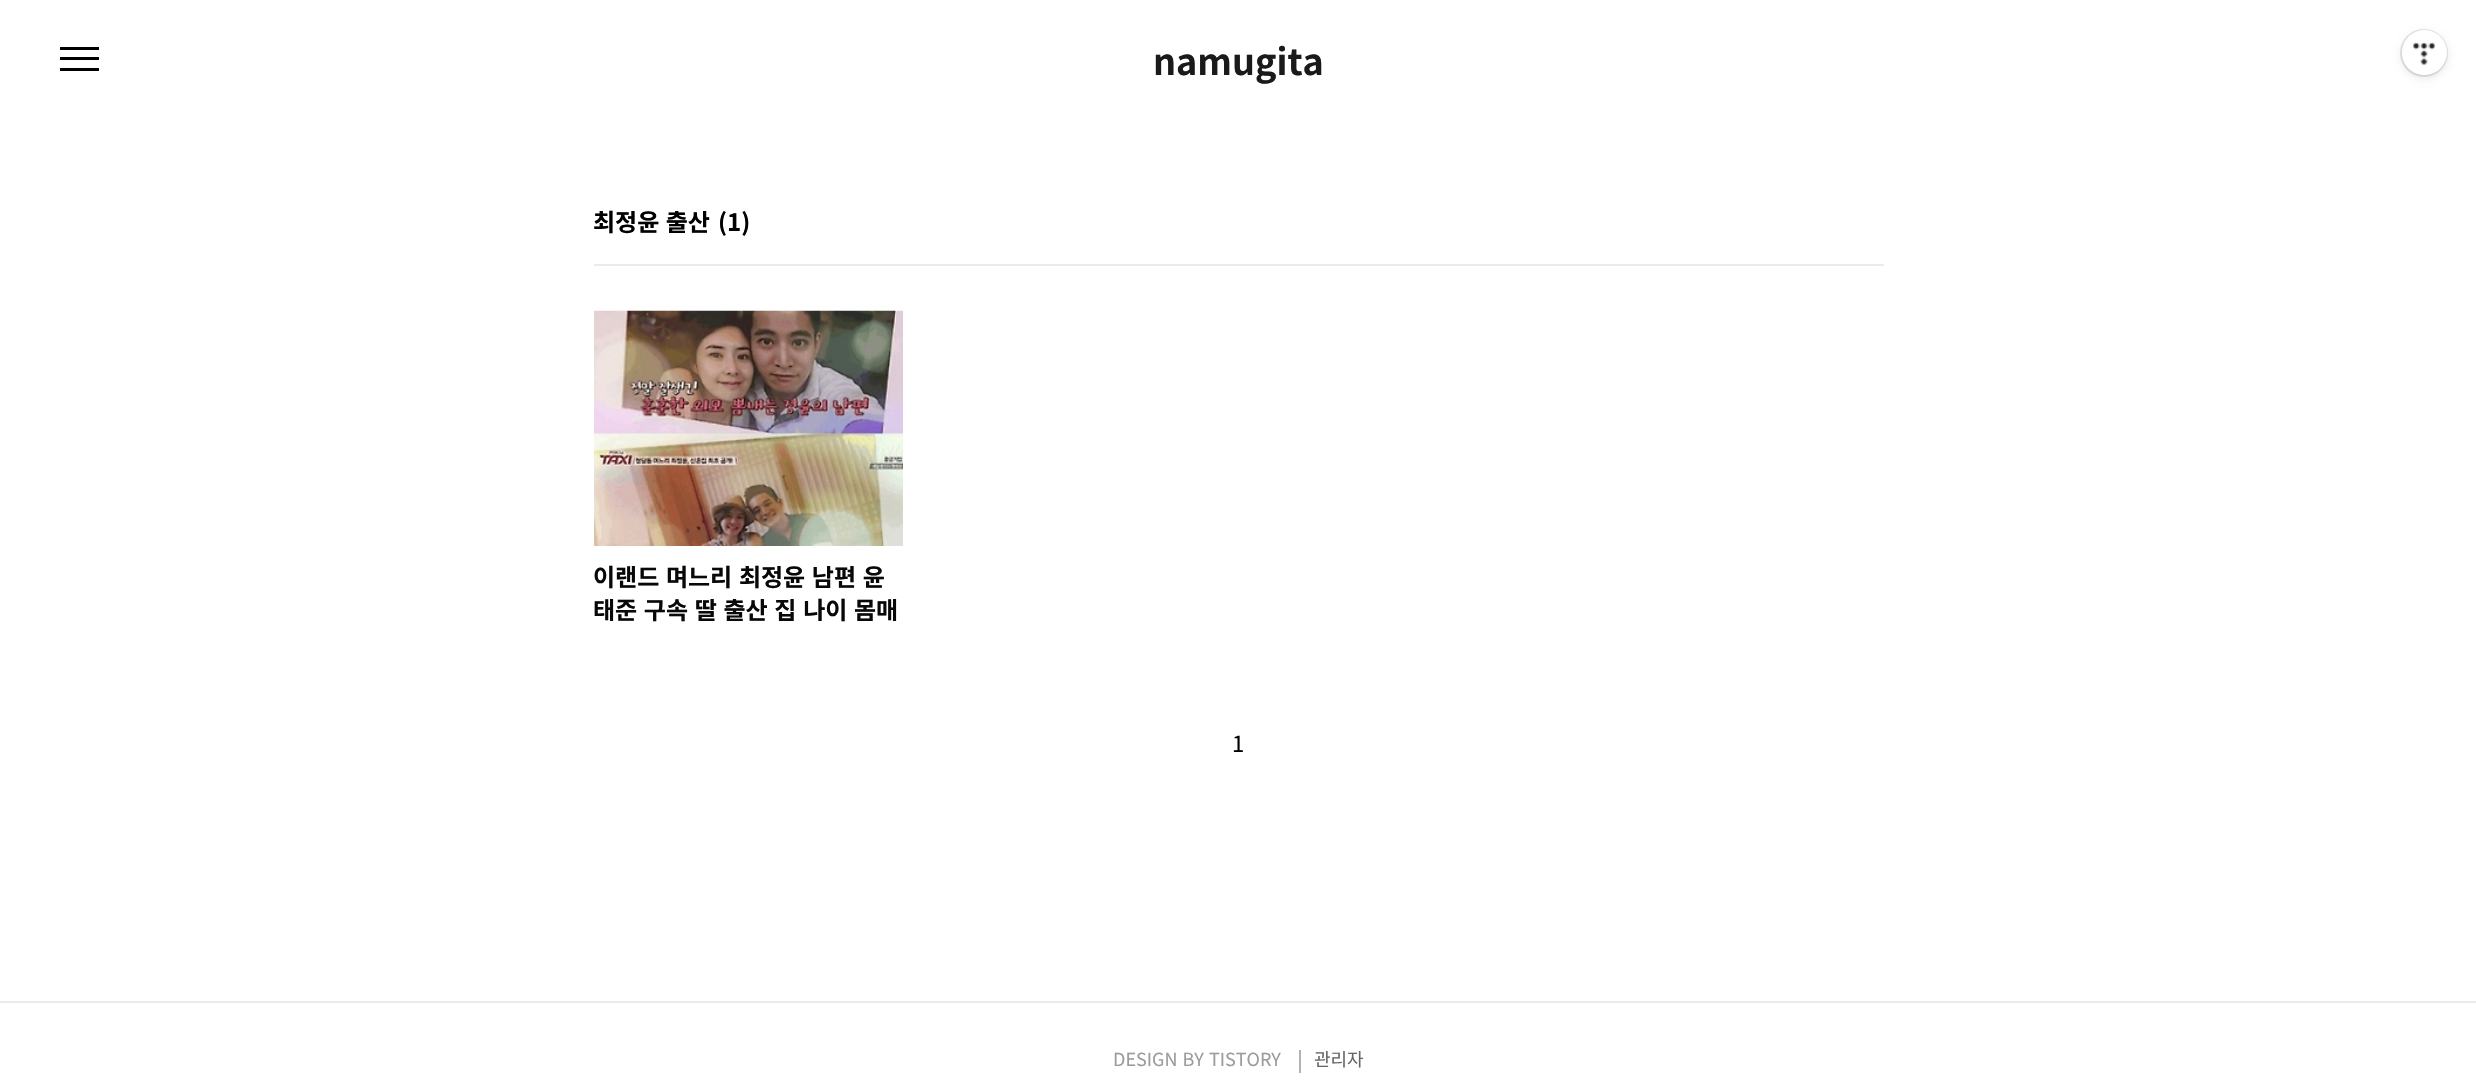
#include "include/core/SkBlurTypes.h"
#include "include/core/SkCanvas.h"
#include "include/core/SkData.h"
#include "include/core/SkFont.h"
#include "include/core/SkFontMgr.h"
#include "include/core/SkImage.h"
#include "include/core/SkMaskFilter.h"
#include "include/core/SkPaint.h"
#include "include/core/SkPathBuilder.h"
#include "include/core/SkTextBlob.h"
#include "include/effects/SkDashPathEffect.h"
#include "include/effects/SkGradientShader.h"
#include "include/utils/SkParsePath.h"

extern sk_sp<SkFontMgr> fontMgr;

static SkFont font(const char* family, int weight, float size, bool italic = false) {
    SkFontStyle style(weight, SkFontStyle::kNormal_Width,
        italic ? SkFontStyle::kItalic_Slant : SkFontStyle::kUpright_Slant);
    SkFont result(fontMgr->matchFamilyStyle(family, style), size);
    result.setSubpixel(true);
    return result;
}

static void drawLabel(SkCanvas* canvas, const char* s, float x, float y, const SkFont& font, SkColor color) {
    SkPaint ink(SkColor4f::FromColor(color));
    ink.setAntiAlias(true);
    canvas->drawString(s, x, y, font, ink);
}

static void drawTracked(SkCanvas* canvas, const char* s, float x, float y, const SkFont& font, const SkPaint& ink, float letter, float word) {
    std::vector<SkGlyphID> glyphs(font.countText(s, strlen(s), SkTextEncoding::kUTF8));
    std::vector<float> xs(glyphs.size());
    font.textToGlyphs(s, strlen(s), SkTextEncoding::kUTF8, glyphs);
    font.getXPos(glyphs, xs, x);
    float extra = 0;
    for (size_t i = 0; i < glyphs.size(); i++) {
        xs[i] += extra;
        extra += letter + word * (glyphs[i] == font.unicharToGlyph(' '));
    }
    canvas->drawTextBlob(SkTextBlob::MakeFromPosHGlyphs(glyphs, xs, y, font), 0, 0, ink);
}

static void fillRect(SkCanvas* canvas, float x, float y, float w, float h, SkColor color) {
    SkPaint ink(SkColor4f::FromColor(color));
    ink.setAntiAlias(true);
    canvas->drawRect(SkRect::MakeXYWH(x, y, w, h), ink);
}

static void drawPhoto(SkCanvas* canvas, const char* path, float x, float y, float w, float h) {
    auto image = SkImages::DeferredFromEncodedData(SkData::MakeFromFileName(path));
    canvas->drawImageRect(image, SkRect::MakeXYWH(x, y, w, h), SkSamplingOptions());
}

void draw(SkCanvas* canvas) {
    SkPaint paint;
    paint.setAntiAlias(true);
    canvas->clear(0xFFFFFFFF);
    fillRect(canvas, 60, 47, 39, 3, 0xFF000000);
    fillRect(canvas, 60, 57, 39, 3, 0xFF000000);
    fillRect(canvas, 60, 68, 39, 3, 0xFF000000);
    SkFont font1 = font("Noto Sans KR", 700, 36);
    drawLabel(canvas, "namugita", 1153, 75, font1, 0xFF1A1A1A);
    fillRect(canvas, 594, 264, 1290, 2, 0xFFEBEBEB);
    SkFont font2 = font("Noto Sans KR", 700, 24);
    paint.setColor(0xFF000000);
    drawTracked(canvas, "최정윤 출산", 593, 231, font2, paint, 0, 1);
    drawLabel(canvas, "(1)", 718, 231, font2, 0xFF000000);
    drawPhoto(canvas, "assets/img1.png", 594, 310, 309, 236);
    paint.setColor(0xFF080808);
    drawTracked(canvas, "이랜드 며느리 최정윤 남편 윤", 593, 586, font2, paint, 0, 1.25f);
    drawTracked(canvas, "태준 구속 딸 출산 집 나이 몸매", 593, 619, font2, paint, 0, 1.25f);
    SkFont font3 = font("Noto Sans KR", 400, 22);
    drawLabel(canvas, "1", 1232, 752, font3, 0xFF000000);
    fillRect(canvas, 0, 1001, 2476, 2, 0xFFEBEBEB);
    SkFont font4 = font("Noto Sans KR", 400, 18);
    paint.setColor(0xFF9B9B9B);
    drawTracked(canvas, "DESIGN BY", 1113, 1066, font4, paint, 0, 1);
    drawLabel(canvas, "TISTORY", 1209, 1066, font4, 0xFF9B9B9B);
    fillRect(canvas, 1299, 1050, 2, 23, 0xFFB2B2B2);
    drawLabel(canvas, "관리자", 1314, 1066, font4, 0xFF666666);
    paint.setColor(0x1A000000);
    paint.setMaskFilter(SkMaskFilter::MakeBlur(kNormal_SkBlurStyle, 4));
    canvas->drawRoundRect(SkRect::MakeXYWH(2402, 33, 45, 45), 22.5f, 22.5f, paint);
    paint.setMaskFilter(nullptr);
    paint.setStroke(true);
    paint.setStrokeWidth(2);
    canvas->drawCircle(2424, 53, 23, paint);
    paint.setStroke(false);
    paint.setColor(0xFFFFFFFF);
    canvas->drawCircle(2424.5f, 52.5f, 22.5f, paint);
    drawPhoto(canvas, "assets/img2.png", 2413, 42, 22, 23);
}
